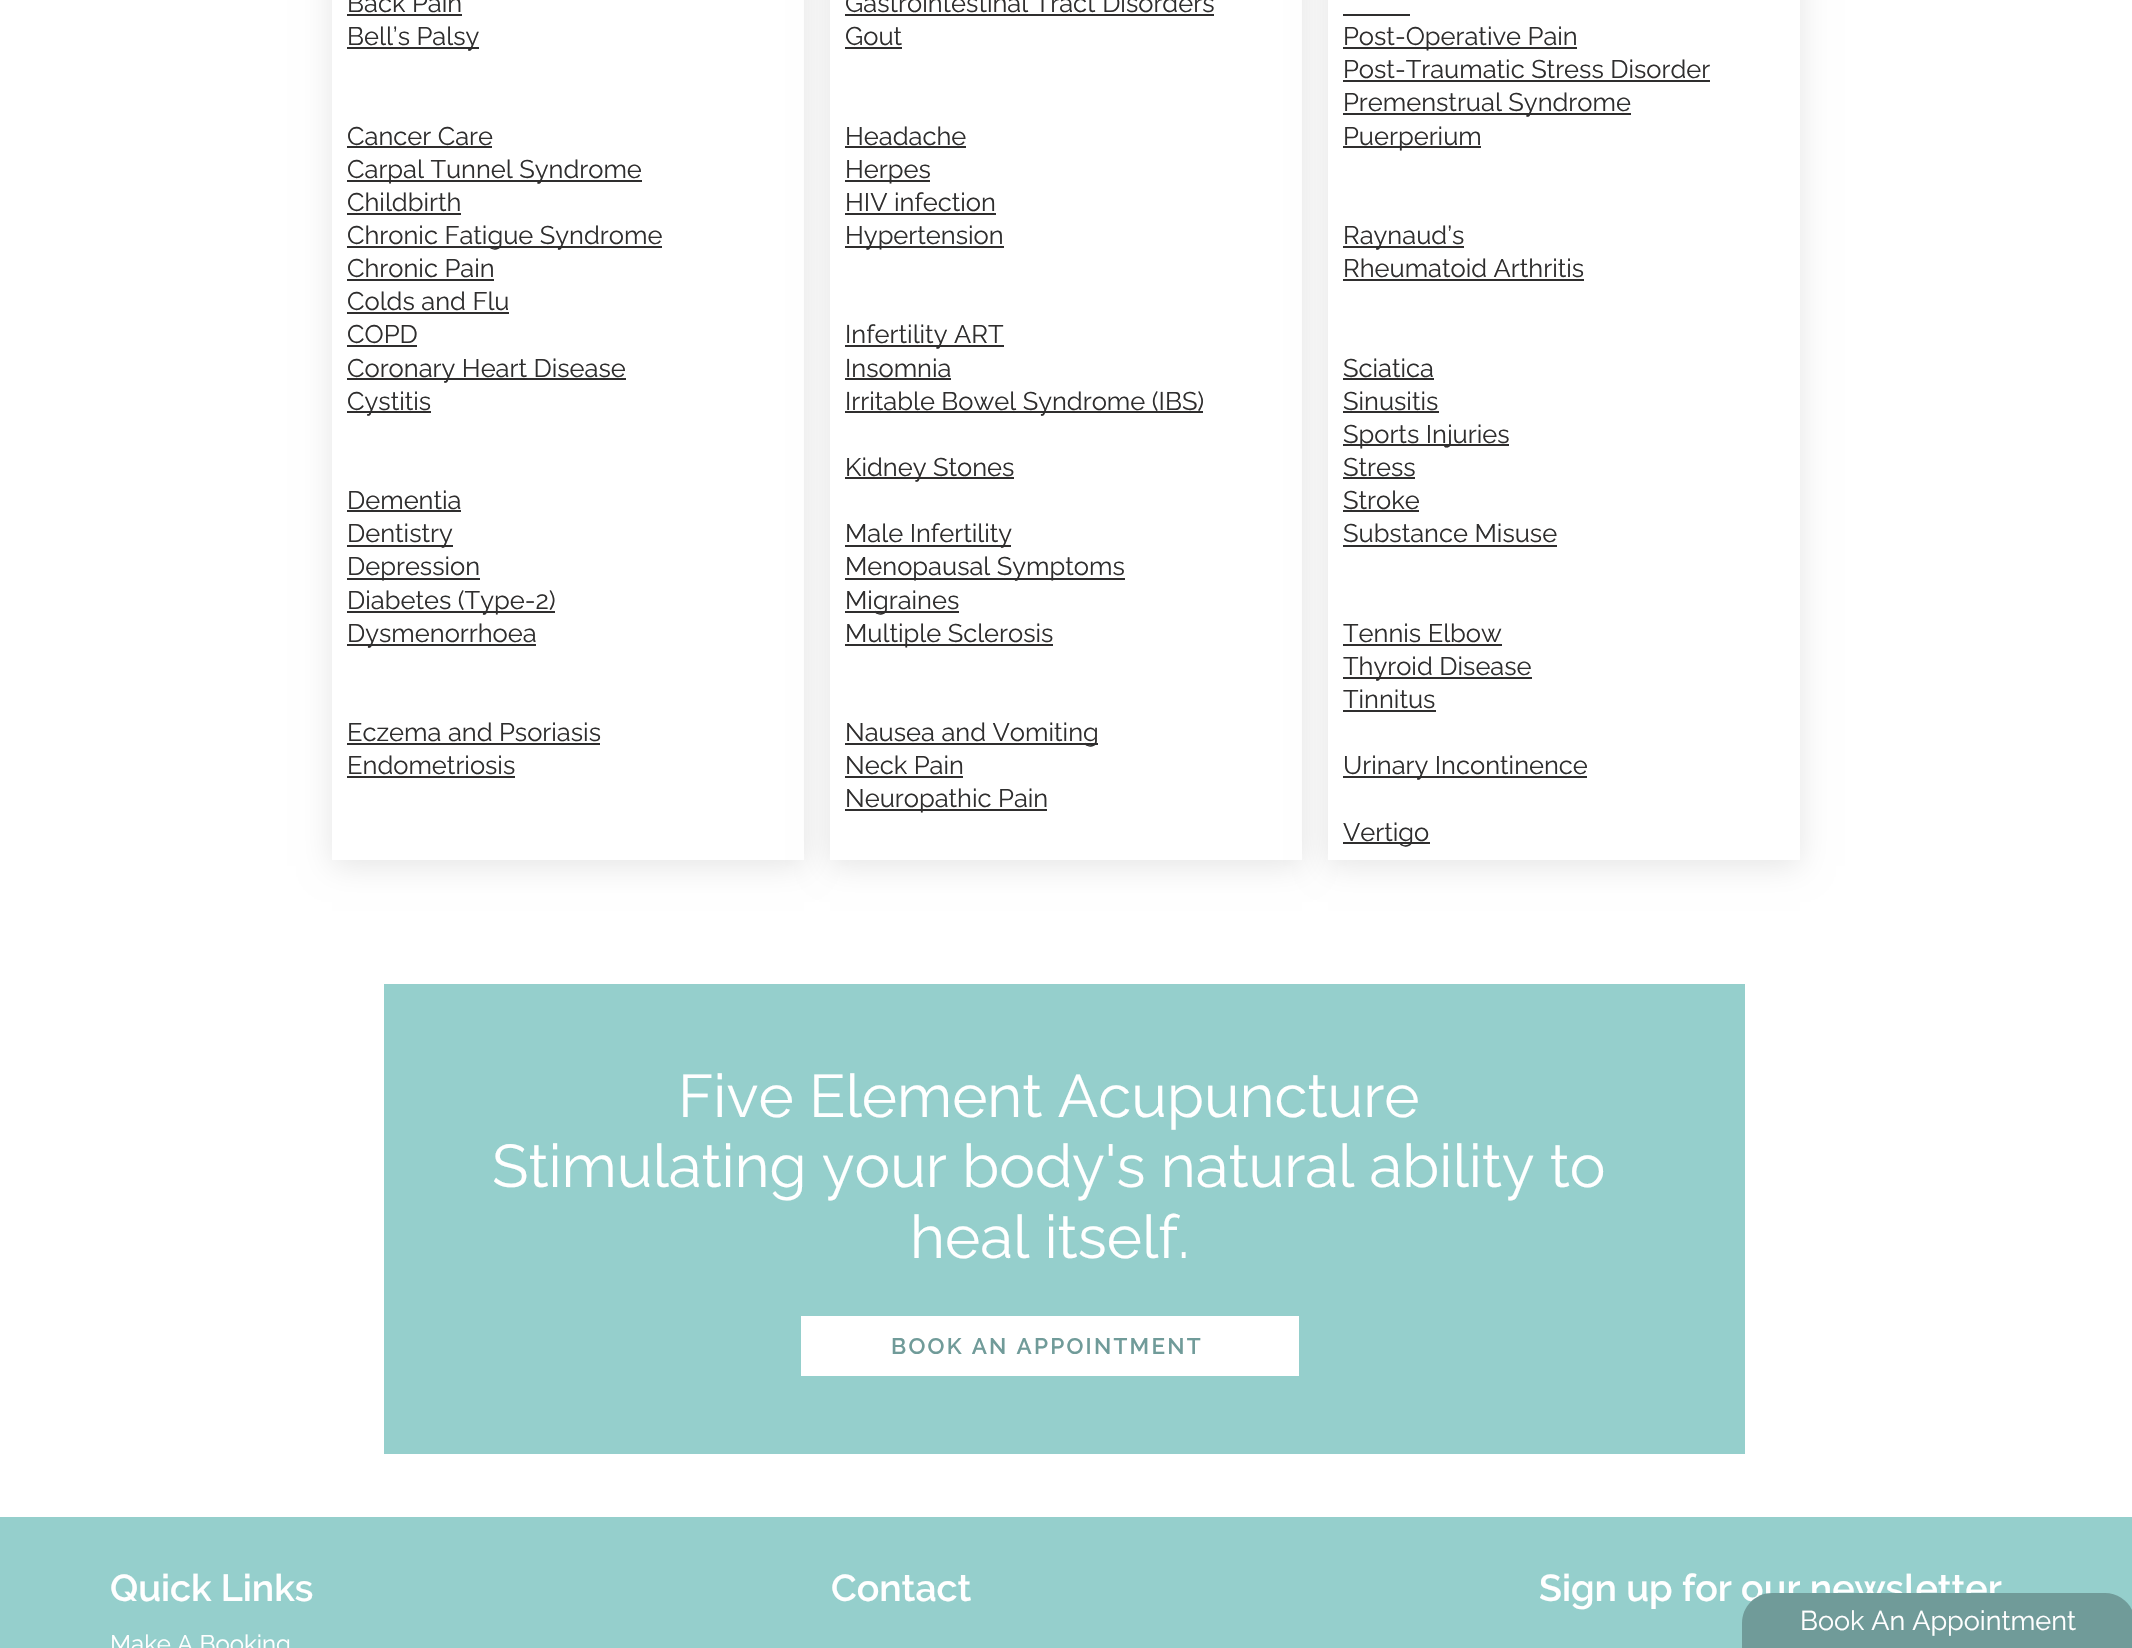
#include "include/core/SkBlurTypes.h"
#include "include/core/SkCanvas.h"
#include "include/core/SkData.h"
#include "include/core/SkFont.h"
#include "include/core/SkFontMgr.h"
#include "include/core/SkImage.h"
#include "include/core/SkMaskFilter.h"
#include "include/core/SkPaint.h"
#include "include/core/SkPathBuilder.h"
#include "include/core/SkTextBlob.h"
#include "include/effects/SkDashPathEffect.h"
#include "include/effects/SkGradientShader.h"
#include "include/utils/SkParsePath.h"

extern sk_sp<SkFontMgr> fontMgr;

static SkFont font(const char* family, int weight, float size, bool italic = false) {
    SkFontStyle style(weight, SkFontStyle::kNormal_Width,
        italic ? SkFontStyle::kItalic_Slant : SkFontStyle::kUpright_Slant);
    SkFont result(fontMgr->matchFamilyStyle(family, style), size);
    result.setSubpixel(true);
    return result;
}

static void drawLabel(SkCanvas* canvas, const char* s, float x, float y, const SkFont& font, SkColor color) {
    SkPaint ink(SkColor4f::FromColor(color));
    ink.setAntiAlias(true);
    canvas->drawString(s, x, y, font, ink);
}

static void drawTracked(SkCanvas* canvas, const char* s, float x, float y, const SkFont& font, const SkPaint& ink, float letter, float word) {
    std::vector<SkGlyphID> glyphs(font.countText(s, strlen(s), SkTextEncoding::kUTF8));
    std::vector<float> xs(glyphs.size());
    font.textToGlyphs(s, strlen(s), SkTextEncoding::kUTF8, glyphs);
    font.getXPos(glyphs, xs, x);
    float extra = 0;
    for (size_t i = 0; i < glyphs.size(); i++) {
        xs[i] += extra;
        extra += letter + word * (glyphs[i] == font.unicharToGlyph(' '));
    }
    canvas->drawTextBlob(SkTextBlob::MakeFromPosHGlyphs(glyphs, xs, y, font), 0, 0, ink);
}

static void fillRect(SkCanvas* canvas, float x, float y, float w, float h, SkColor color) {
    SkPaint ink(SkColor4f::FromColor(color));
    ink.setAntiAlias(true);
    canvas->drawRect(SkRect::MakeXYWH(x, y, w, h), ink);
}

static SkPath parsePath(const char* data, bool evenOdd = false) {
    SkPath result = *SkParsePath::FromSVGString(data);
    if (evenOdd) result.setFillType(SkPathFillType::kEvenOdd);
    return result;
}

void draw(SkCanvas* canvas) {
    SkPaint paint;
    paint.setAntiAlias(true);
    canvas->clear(0xFFFFFFFF);
    paint.setColor(0x1A000000);
    paint.setMaskFilter(SkMaskFilter::MakeBlur(kNormal_SkBlurStyle, 15));
    canvas->drawRect(SkRect::MakeXYWH(332, -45, 472, 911), paint);
    paint.setMaskFilter(nullptr);
    fillRect(canvas, 332, 0, 472, 860, 0xFFFFFFFF);
    SkFont font1 = font("Raleway", 400, 25.5f);
    drawLabel(canvas, "Back Pain", 347, 12, font1, 0xFF2F2E2E);
    fillRect(canvas, 347, 14, 115, 2, 0xFF2F2E2E);
    fillRect(canvas, 347, 47, 132, 2, 0xFF2F2E2E);
    drawLabel(canvas, "Bell’s Palsy", 347, 45, font1, 0xFF2F2E2E);
    drawLabel(canvas, "Cancer Care", 347, 145, font1, 0xFF2F2E2E);
    fillRect(canvas, 347, 146, 145, 2, 0xFF2F2E2E);
    fillRect(canvas, 347, 180, 295, 2, 0xFF2F2E2E);
    drawLabel(canvas, "Carpal Tunnel Syndrome", 347, 178, font1, 0xFF2F2E2E);
    drawLabel(canvas, "Childbirth", 347, 211, font1, 0xFF2F2E2E);
    fillRect(canvas, 347, 213, 114, 2, 0xFF2F2E2E);
    fillRect(canvas, 347, 246, 315, 2, 0xFF2F2E2E);
    drawLabel(canvas, "Chronic Fatigue Syndrome", 347, 244, font1, 0xFF2F2E2E);
    drawLabel(canvas, "Chronic Pain", 347, 277, font1, 0xFF2F2E2E);
    fillRect(canvas, 347, 279, 147, 2, 0xFF2F2E2E);
    drawLabel(canvas, "Colds and Flu", 347, 310, font1, 0xFF2F2E2E);
    fillRect(canvas, 347, 312, 162, 2, 0xFF2F2E2E);
    drawLabel(canvas, "COPD", 347, 343, font1, 0xFF2F2E2E);
    fillRect(canvas, 347, 345, 70, 2, 0xFF2F2E2E);
    fillRect(canvas, 347, 378, 279, 2, 0xFF2F2E2E);
    drawLabel(canvas, "Coronary Heart Disease", 347, 377, font1, 0xFF2F2E2E);
    fillRect(canvas, 347, 411, 84, 2, 0xFF2F2E2E);
    drawLabel(canvas, "Cystitis", 347, 410, font1, 0xFF2F2E2E);
    drawLabel(canvas, "Dementia", 347, 509, font1, 0xFF2F2E2E);
    fillRect(canvas, 347, 510, 114, 2, 0xFF2F2E2E);
    fillRect(canvas, 347, 545, 106, 2, 0xFF2F2E2E);
    drawLabel(canvas, "Dentistry", 347, 542, font1, 0xFF2F2E2E);
    fillRect(canvas, 347, 578, 133, 2, 0xFF2F2E2E);
    drawLabel(canvas, "Depression", 347, 575, font1, 0xFF2F2E2E);
    fillRect(canvas, 347, 611, 208, 2, 0xFF2F2E2E);
    drawLabel(canvas, "Diabetes (Type-2)", 347, 609, font1, 0xFF2F2E2E);
    fillRect(canvas, 347, 644, 189, 2, 0xFF2F2E2E);
    drawLabel(canvas, "Dysmenorrhoea", 347, 642, font1, 0xFF2F2E2E);
    drawLabel(canvas, "Eczema and Psoriasis", 347, 741, font1, 0xFF2F2E2E);
    fillRect(canvas, 347, 743, 253, 2, 0xFF2F2E2E);
    drawLabel(canvas, "Endometriosis", 347, 774, font1, 0xFF2F2E2E);
    fillRect(canvas, 347, 776, 168, 2, 0xFF2F2E2E);
    paint.setMaskFilter(SkMaskFilter::MakeBlur(kNormal_SkBlurStyle, 15));
    canvas->drawRect(SkRect::MakeXYWH(830, -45, 472, 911), paint);
    paint.setMaskFilter(nullptr);
    fillRect(canvas, 830, 0, 472, 860, 0xFFFFFFFF);
    drawLabel(canvas, "Gastrointestinal Tract Disorders", 845, 12, font1, 0xFF2F2E2E);
    fillRect(canvas, 845, 14, 369, 2, 0xFF2F2E2E);
    drawLabel(canvas, "Gout", 845, 45, font1, 0xFF2F2E2E);
    fillRect(canvas, 845, 47, 57, 2, 0xFF2F2E2E);
    drawLabel(canvas, "Headache", 845, 145, font1, 0xFF2F2E2E);
    fillRect(canvas, 845, 146, 121, 2, 0xFF2F2E2E);
    fillRect(canvas, 845, 180, 85, 2, 0xFF2F2E2E);
    drawLabel(canvas, "Herpes", 845, 178, font1, 0xFF2F2E2E);
    drawLabel(canvas, "HIV infection", 845, 211, font1, 0xFF2F2E2E);
    fillRect(canvas, 845, 213, 151, 2, 0xFF2F2E2E);
    fillRect(canvas, 845, 246, 159, 2, 0xFF2F2E2E);
    drawLabel(canvas, "Hypertension", 845, 244, font1, 0xFF2F2E2E);
    fillRect(canvas, 845, 345, 159, 2, 0xFF2F2E2E);
    drawLabel(canvas, "Infertility ART", 845, 343, font1, 0xFF2F2E2E);
    drawLabel(canvas, "Insomnia", 845, 377, font1, 0xFF2F2E2E);
    fillRect(canvas, 845, 378, 106, 2, 0xFF2F2E2E);
    fillRect(canvas, 845, 411, 358, 2, 0xFF2F2E2E);
    drawLabel(canvas, "Irritable Bowel Syndrome (IBS)", 845, 410, font1, 0xFF2F2E2E);
    fillRect(canvas, 845, 477, 169, 2, 0xFF2F2E2E);
    drawLabel(canvas, "Kidney Stones", 845, 476, font1, 0xFF2F2E2E);
    fillRect(canvas, 845, 545, 166, 2, 0xFF2F2E2E);
    drawLabel(canvas, "Male Infertility", 845, 542, font1, 0xFF2F2E2E);
    fillRect(canvas, 845, 578, 280, 2, 0xFF2F2E2E);
    drawLabel(canvas, "Menopausal Symptoms", 845, 575, font1, 0xFF2F2E2E);
    fillRect(canvas, 845, 611, 114, 2, 0xFF2F2E2E);
    drawLabel(canvas, "Migraines", 845, 609, font1, 0xFF2F2E2E);
    fillRect(canvas, 845, 644, 208, 2, 0xFF2F2E2E);
    drawLabel(canvas, "Multiple Sclerosis", 845, 642, font1, 0xFF2F2E2E);
    fillRect(canvas, 845, 743, 253, 2, 0xFF2F2E2E);
    drawLabel(canvas, "Nausea and Vomiting", 845, 741, font1, 0xFF2F2E2E);
    drawLabel(canvas, "Neck Pain", 845, 774, font1, 0xFF2F2E2E);
    fillRect(canvas, 845, 776, 118, 2, 0xFF2F2E2E);
    fillRect(canvas, 845, 809, 202, 2, 0xFF2F2E2E);
    drawLabel(canvas, "Neuropathic Pain", 845, 807, font1, 0xFF2F2E2E);
    paint.setMaskFilter(SkMaskFilter::MakeBlur(kNormal_SkBlurStyle, 15));
    canvas->drawRect(SkRect::MakeXYWH(1328, -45, 472, 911), paint);
    paint.setMaskFilter(nullptr);
    fillRect(canvas, 1328, 0, 472, 860, 0xFFFFFFFF);
    fillRect(canvas, 1343, 14, 67, 2, 0xFF2F2E2E);
    fillRect(canvas, 1343, 47, 234, 2, 0xFF2F2E2E);
    drawLabel(canvas, "Post-Operative Pain", 1343, 45, font1, 0xFF2F2E2E);
    drawLabel(canvas, "Post-Traumatic Stress Disorder", 1343, 78, font1, 0xFF2F2E2E);
    fillRect(canvas, 1343, 80, 367, 2, 0xFF2F2E2E);
    fillRect(canvas, 1343, 113, 288, 2, 0xFF2F2E2E);
    drawLabel(canvas, "Premenstrual Syndrome", 1343, 111, font1, 0xFF2F2E2E);
    fillRect(canvas, 1343, 146, 138, 2, 0xFF2F2E2E);
    drawLabel(canvas, "Puerperium", 1343, 145, font1, 0xFF2F2E2E);
    fillRect(canvas, 1343, 246, 121, 2, 0xFF2F2E2E);
    drawLabel(canvas, "Raynaud’s", 1343, 244, font1, 0xFF2F2E2E);
    drawLabel(canvas, "Rheumatoid Arthritis", 1343, 277, font1, 0xFF2F2E2E);
    fillRect(canvas, 1343, 279, 241, 2, 0xFF2F2E2E);
    drawLabel(canvas, "Sciatica", 1343, 377, font1, 0xFF2F2E2E);
    fillRect(canvas, 1343, 378, 91, 2, 0xFF2F2E2E);
    drawLabel(canvas, "Sinusitis", 1343, 410, font1, 0xFF2F2E2E);
    fillRect(canvas, 1343, 411, 96, 2, 0xFF2F2E2E);
    fillRect(canvas, 1343, 444, 166, 2, 0xFF2F2E2E);
    drawLabel(canvas, "Sports Injuries", 1343, 443, font1, 0xFF2F2E2E);
    drawLabel(canvas, "Stress", 1343, 476, font1, 0xFF2F2E2E);
    fillRect(canvas, 1343, 477, 72, 2, 0xFF2F2E2E);
    drawLabel(canvas, "Stroke", 1343, 509, font1, 0xFF2F2E2E);
    fillRect(canvas, 1343, 510, 76, 2, 0xFF2F2E2E);
    drawLabel(canvas, "Substance Misuse", 1343, 542, font1, 0xFF2F2E2E);
    fillRect(canvas, 1343, 545, 214, 2, 0xFF2F2E2E);
    drawLabel(canvas, "Tennis Elbow", 1343, 642, font1, 0xFF2F2E2E);
    fillRect(canvas, 1343, 644, 159, 2, 0xFF2F2E2E);
    fillRect(canvas, 1343, 677, 189, 2, 0xFF2F2E2E);
    drawLabel(canvas, "Thyroid Disease", 1343, 675, font1, 0xFF2F2E2E);
    drawLabel(canvas, "Tinnitus", 1343, 708, font1, 0xFF2F2E2E);
    fillRect(canvas, 1343, 710, 93, 2, 0xFF2F2E2E);
    fillRect(canvas, 1343, 776, 244, 2, 0xFF2F2E2E);
    drawLabel(canvas, "Urinary Incontinence", 1343, 774, font1, 0xFF2F2E2E);
    fillRect(canvas, 1343, 842, 87, 2, 0xFF2F2E2E);
    drawLabel(canvas, "Vertigo", 1343, 841, font1, 0xFF2F2E2E);
    fillRect(canvas, 384, 984, 1361, 470, 0xFF95CFCC);
    SkFont font2 = font("Raleway", 400, 60);
    drawLabel(canvas, "Five Element Acupuncture", 678, 1117, font2, 0xFFFFFFFF);
    drawLabel(canvas, "Stimulating your body's natural ability to", 492, 1187, font2, 0xFFFFFFFF);
    drawLabel(canvas, "heal itself.", 910, 1258, font2, 0xFFFFFFFF);
    fillRect(canvas, 801, 1316, 498, 60, 0xFFFFFFFF);
    SkFont font3 = font("Raleway", 600, 22.5f);
    paint.setColor(0xFF709B99);
    drawTracked(canvas, "BOOK AN APPOINTMENT", 891, 1354, font3, paint, 2.25f, 0);
    fillRect(canvas, 0, 1517, 2132, 131, 0xFF95CFCC);
    SkFont font4 = font("Raleway", 600, 37.5f);
    drawLabel(canvas, "Quick Links", 110, 1601, font4, 0xFFFFFFFF);
    SkFont font5 = font("Raleway", 400, 24);
    drawLabel(canvas, "Make A Booking", 110, 1652, font5, 0xFFFFFFFF);
    drawLabel(canvas, "Contact", 831, 1601, font4, 0xFFFFFFFF);
    drawLabel(canvas, "Sign up for our newsletter", 1539, 1601, font4, 0xFFFFFFFF);
    canvas->drawPath(parsePath("M1772 1593H2105C2121.5 1593 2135 1606.5 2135 1623V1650H1742V1623C1742 1606.5 1755.5 1593 1772 1593Z"), paint);
    SkFont font6 = font("Raleway", 400, 27);
    drawLabel(canvas, "Book An Appointment", 1800, 1630, font6, 0xFFFFFFFF);
}
